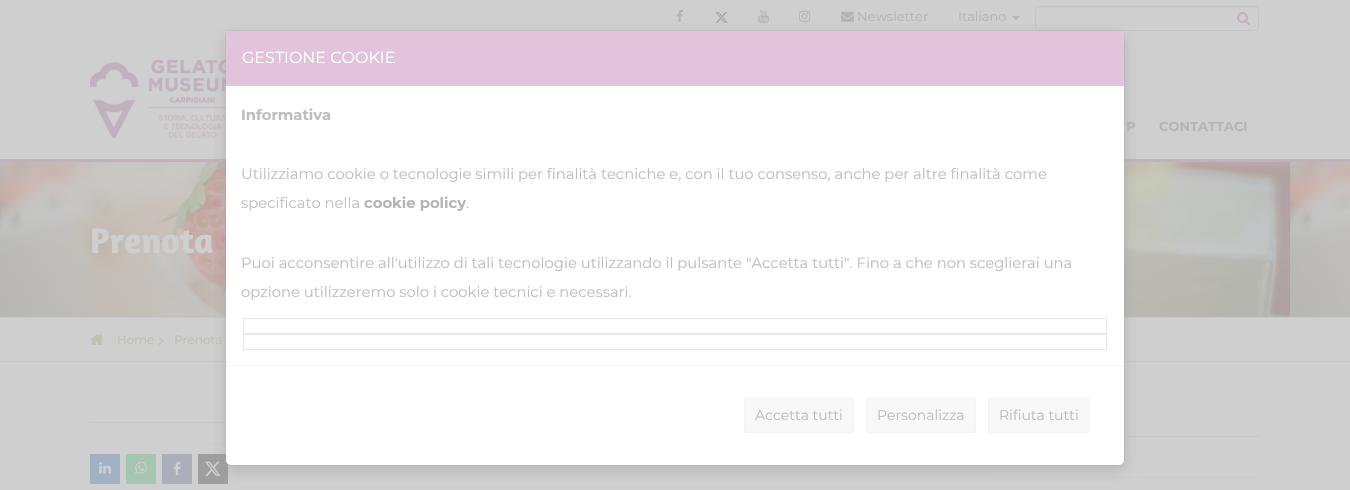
#include "include/core/SkBlurTypes.h"
#include "include/core/SkCanvas.h"
#include "include/core/SkData.h"
#include "include/core/SkFont.h"
#include "include/core/SkFontMgr.h"
#include "include/core/SkImage.h"
#include "include/core/SkMaskFilter.h"
#include "include/core/SkPaint.h"
#include "include/core/SkPathBuilder.h"
#include "include/core/SkTextBlob.h"
#include "include/effects/SkDashPathEffect.h"
#include "include/effects/SkGradientShader.h"
#include "include/utils/SkParsePath.h"

extern sk_sp<SkFontMgr> fontMgr;

static SkFont font(const char* family, int weight, float size, bool italic = false) {
    SkFontStyle style(weight, SkFontStyle::kNormal_Width,
        italic ? SkFontStyle::kItalic_Slant : SkFontStyle::kUpright_Slant);
    SkFont result(fontMgr->matchFamilyStyle(family, style), size);
    result.setSubpixel(true);
    return result;
}

static void drawLabel(SkCanvas* canvas, const char* s, float x, float y, const SkFont& font, SkColor color) {
    SkPaint ink(SkColor4f::FromColor(color));
    ink.setAntiAlias(true);
    canvas->drawString(s, x, y, font, ink);
}

static void fillRect(SkCanvas* canvas, float x, float y, float w, float h, SkColor color) {
    SkPaint ink(SkColor4f::FromColor(color));
    ink.setAntiAlias(true);
    canvas->drawRect(SkRect::MakeXYWH(x, y, w, h), ink);
}

static void fillRRect(SkCanvas* canvas, float x, float y, float w, float h, float radius, SkColor color) {
    SkPaint ink(SkColor4f::FromColor(color));
    ink.setAntiAlias(true);
    canvas->drawRoundRect(SkRect::MakeXYWH(x, y, w, h), radius, radius, ink);
}

static void drawPhoto(SkCanvas* canvas, const char* path, float x, float y, float w, float h) {
    auto image = SkImages::DeferredFromEncodedData(SkData::MakeFromFileName(path));
    canvas->drawImageRect(image, SkRect::MakeXYWH(x, y, w, h), SkSamplingOptions());
}

static SkPath parsePath(const char* data, bool evenOdd = false) {
    SkPath result = *SkParsePath::FromSVGString(data);
    if (evenOdd) result.setFillType(SkPathFillType::kEvenOdd);
    return result;
}

void draw(SkCanvas* canvas) {
    SkPaint paint;
    paint.setAntiAlias(true);
    canvas->clear(0xFFCFCFCF);
    fillRect(canvas, 0, 159, 1350, 3, 0xFFC0B1BD);
    drawPhoto(canvas, "assets/img1.png", 676, 9, 7, 13);
    drawPhoto(canvas, "assets/img2.png", 715, 12, 13, 11);
    drawPhoto(canvas, "assets/img3.png", 758, 9, 11, 14);
    drawPhoto(canvas, "assets/img4.png", 799, 10, 12, 12);
    drawPhoto(canvas, "assets/img5.png", 841, 11, 13, 11);
    SkFont font1 = font("Montserrat", 400, 13);
    drawLabel(canvas, "Newsletter", 857, 21, font1, 0xFFB5B5B5);
    drawLabel(canvas, "Italiano", 958, 21, font1, 0xFFB5B5B5);
    paint.setColor(0xFFB5B5B5);
    canvas->drawPath(parsePath("M1012 16H1020L1016 20Z"), paint);
    paint.setColor(0xFFCBCBCB);
    canvas->drawPath(parsePath("M1039 8H1255C1257 8 1258 9 1258 11V10C1258 8 1257 7 1255 7H1039C1037 7 1036 8 1036 10V11C1036 9 1037 8 1039 8Z"), paint);
    paint.setStroke(true);
    paint.setStrokeWidth(1);
    paint.setColor(0xFFC5C5C5);
    canvas->drawRoundRect(SkRect::MakeXYWH(1035.5f, 6.5f, 223, 24), 3.5f, 3.5f, paint);
    drawPhoto(canvas, "assets/img6.png", 1237, 12, 13, 13);
    drawPhoto(canvas, "assets/img7.png", 90, 60, 136, 78);
    SkFont font2 = font("Montserrat", 700, 13);
    drawLabel(canvas, "P", 1126, 131, font2, 0xFFB5B5B5);
    drawLabel(canvas, "CONTATTACI", 1159, 131, font2, 0xFFB5B5B5);
    drawPhoto(canvas, "assets/img8.png", 0, 162, 1350, 155);
    fillRect(canvas, 0, 317, 1350, 1, 0xFFC8C8C8);
    SkFont font3 = font("Amaranth", 700, 36);
    drawLabel(canvas, "Prenota", 90, 253, font3, 0xFFCFCFCF);
    fillRect(canvas, 0, 361, 1350, 1, 0xFFC8C8C8);
    fillRect(canvas, 90, 422, 136, 1, 0xFFC8C8C8);
    fillRect(canvas, 90, 444, 136, 1, 0xFFCBCBCB);
    fillRect(canvas, 198, 454, 30, 30, 0xFF9E9E9E);
    drawPhoto(canvas, "assets/img14.png", 205, 461, 16, 15);
    fillRect(canvas, 1124, 436, 136, 1, 0xFFC9C9C9);
    fillRect(canvas, 990, 477, 270, 1, 0xFFCBCBCB);
    paint.setStroke(false);
    paint.setColor(0x809E9E9E);
    paint.setMaskFilter(SkMaskFilter::MakeBlur(kNormal_SkBlurStyle, 7.5f));
    canvas->drawRoundRect(SkRect::MakeXYWH(225, 35, 900, 436), 6, 6, paint);
    paint.setMaskFilter(nullptr);
    fillRRect(canvas, 226, 31, 898, 434, 5, 0xFFFFFFFF);
    paint.setStroke(true);
    paint.setColor(0x339E9E9E);
    canvas->drawRoundRect(SkRect::MakeXYWH(225.5f, 30.5f, 899, 435), 5.5f, 5.5f, paint);
    paint.setStroke(false);
    paint.setColor(0xFFE1C4DB);
    canvas->drawPath(parsePath("M227 31H1123C1123.5 31 1124 31.5 1124 32V86H226V32C226 31.5 226.5 31 227 31Z"), paint);
    SkFont font4 = font("Montserrat", 400, 16);
    drawLabel(canvas, "GESTIONE COOKIE", 242, 63, font4, 0xFFFFFFFF);
    SkFont font5 = font("Montserrat", 700, 14.77f);
    drawLabel(canvas, "Informativa", 241, 120, font5, 0xFFBEBEBE);
    SkFont font6 = font("Montserrat", 400, 14.77f);
    drawLabel(canvas, "Utilizziamo cookie o tecnologie simili per finalità tecniche e, con il tuo consenso, anche per altre finalità come", 241, 179, font6, 0xFFBEBEBE);
    drawLabel(canvas, "specificato nella", 241, 208, font6, 0xFFBEBEBE);
    drawLabel(canvas, "cookie policy", 364, 208, font5, 0xFFB5B5B5);
    drawLabel(canvas, ".", 466, 208, font6, 0xFFBEBEBE);
    drawLabel(canvas, "Puoi acconsentire all'utilizzo di tali tecnologie utilizzando il pulsante \"Accetta tutti\". Fino a che non sceglierai una", 241, 268, font6, 0xFFBEBEBE);
    drawLabel(canvas, "opzione utilizzeremo solo i cookie tecnici e necessari.", 241, 297, font6, 0xFFBEBEBE);
    paint.setStroke(true);
    paint.setColor(0xFFE7E7E7);
    canvas->drawRect(SkRect::MakeXYWH(243.5f, 318.5f, 863, 15), paint);
    canvas->drawRect(SkRect::MakeXYWH(243.5f, 334.5f, 863, 15), paint);
    fillRect(canvas, 226, 365, 898, 1, 0xFFF5F5F5);
    paint.setStroke(false);
    paint.setColor(0xFFF8F8F8);
    canvas->drawRoundRect(SkRect::MakeXYWH(744.5f, 398.5f, 109, 34), 1.5f, 1.5f, paint);
    paint.setStroke(true);
    paint.setColor(0xFFF4F4F4);
    canvas->drawRoundRect(SkRect::MakeXYWH(744.5f, 398.5f, 109, 34), 1.5f, 1.5f, paint);
    SkFont font7 = font("Montserrat", 400, 14);
    drawLabel(canvas, "Accetta tutti", 755, 420, font7, 0xFFBEBEBE);
    paint.setStroke(false);
    paint.setColor(0xFFF8F8F8);
    canvas->drawRoundRect(SkRect::MakeXYWH(866.5f, 398.5f, 109, 34), 1.5f, 1.5f, paint);
    paint.setStroke(true);
    paint.setColor(0xFFF4F4F4);
    canvas->drawRoundRect(SkRect::MakeXYWH(866.5f, 398.5f, 109, 34), 1.5f, 1.5f, paint);
    drawLabel(canvas, "Personalizza", 877, 420, font7, 0xFFBEBEBE);
    paint.setStroke(false);
    paint.setColor(0xFFF8F8F8);
    canvas->drawRoundRect(SkRect::MakeXYWH(988.5f, 398.5f, 101, 34), 1.5f, 1.5f, paint);
    paint.setStroke(true);
    paint.setColor(0xFFF4F4F4);
    canvas->drawRoundRect(SkRect::MakeXYWH(988.5f, 398.5f, 101, 34), 1.5f, 1.5f, paint);
    drawLabel(canvas, "Rifiuta tutti", 999, 420, font7, 0xFFBEBEBE);
    drawPhoto(canvas, "assets/img9.png", 90, 334, 14, 11);
    SkFont font8 = font("Montserrat", 400, 12);
    drawLabel(canvas, "Home", 117, 344, font8, 0xFFBDC0B1);
    drawPhoto(canvas, "assets/img10.png", 158, 336, 6, 10);
    drawLabel(canvas, "Prenota", 174, 344, font8, 0xFFBDC0B1);
    fillRect(canvas, 90, 454, 30, 30, 0xFFA0B1C3);
    drawPhoto(canvas, "assets/img11.png", 99, 462, 12, 12);
    fillRect(canvas, 126, 454, 30, 30, 0xFFA5C6B1);
    drawPhoto(canvas, "assets/img12.png", 135, 462, 12, 12);
    fillRect(canvas, 162, 454, 30, 30, 0xFFAAAFBB);
    drawPhoto(canvas, "assets/img13.png", 173, 462, 8, 13);
}
